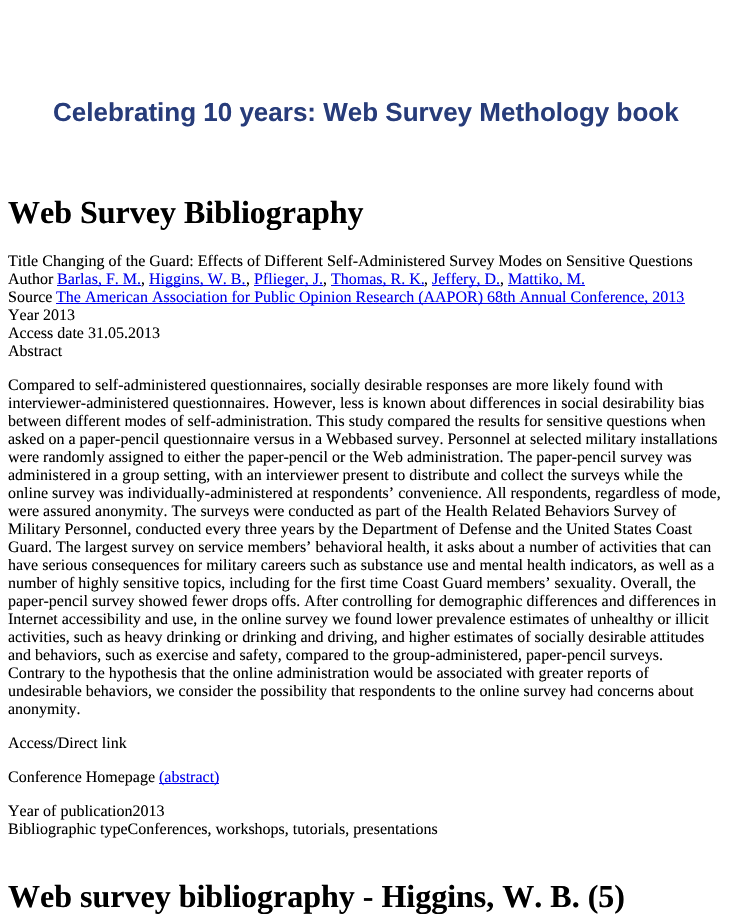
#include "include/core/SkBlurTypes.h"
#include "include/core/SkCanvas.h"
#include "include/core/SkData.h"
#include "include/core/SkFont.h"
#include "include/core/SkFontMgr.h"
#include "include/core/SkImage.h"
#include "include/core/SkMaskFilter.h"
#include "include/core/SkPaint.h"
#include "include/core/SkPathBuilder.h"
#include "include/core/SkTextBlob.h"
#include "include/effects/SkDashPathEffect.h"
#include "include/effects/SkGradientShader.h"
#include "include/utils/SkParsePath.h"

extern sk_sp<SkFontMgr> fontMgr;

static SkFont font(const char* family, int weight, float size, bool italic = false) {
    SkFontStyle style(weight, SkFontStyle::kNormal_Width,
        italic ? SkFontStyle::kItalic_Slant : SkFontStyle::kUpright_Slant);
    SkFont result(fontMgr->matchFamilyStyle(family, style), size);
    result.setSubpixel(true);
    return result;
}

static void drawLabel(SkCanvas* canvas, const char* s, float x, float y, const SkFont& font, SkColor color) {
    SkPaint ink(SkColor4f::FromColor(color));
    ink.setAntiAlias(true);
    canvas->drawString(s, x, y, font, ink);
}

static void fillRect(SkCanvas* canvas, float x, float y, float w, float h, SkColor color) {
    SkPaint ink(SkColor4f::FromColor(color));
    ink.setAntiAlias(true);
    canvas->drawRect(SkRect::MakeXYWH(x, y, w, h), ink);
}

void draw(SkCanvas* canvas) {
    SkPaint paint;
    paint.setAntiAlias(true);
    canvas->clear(0xFFFFFFFF);
    SkFont font1 = font("Liberation Sans", 700, 26);
    drawLabel(canvas, "Celebrating 10 years: Web Survey Methology book", 53, 121, font1, 0xFF273C7A);
    SkFont font2 = font("Liberation Serif", 700, 32);
    drawLabel(canvas, "Web Survey Bibliography", 8, 223, font2, 0xFF000000);
    SkFont font3 = font("Liberation Serif", 400, 16);
    drawLabel(canvas, "Title Changing of the Guard: Effects of Different Self-Administered Survey Modes on Sensitive Questions", 8, 266, font3, 0xFF000000);
    drawLabel(canvas, "Author", 8, 284, font3, 0xFF000000);
    fillRect(canvas, 57, 285, 84, 1, 0xFF0000EE);
    drawLabel(canvas, "Barlas, F. M.", 57, 284, font3, 0xFF0000EE);
    drawLabel(canvas, ",", 141, 284, font3, 0xFF000000);
    fillRect(canvas, 149, 285, 97, 1, 0xFF0000EE);
    drawLabel(canvas, "Higgins, W. B.", 149, 284, font3, 0xFF0000EE);
    drawLabel(canvas, ",", 246, 284, font3, 0xFF000000);
    fillRect(canvas, 254, 285, 69, 1, 0xFF0000EE);
    drawLabel(canvas, "Pflieger, J.", 254, 284, font3, 0xFF0000EE);
    drawLabel(canvas, ",", 323, 284, font3, 0xFF000000);
    fillRect(canvas, 331, 285, 93, 1, 0xFF0000EE);
    drawLabel(canvas, "Thomas, R. K.", 331, 284, font3, 0xFF0000EE);
    drawLabel(canvas, ",", 424, 284, font3, 0xFF000000);
    fillRect(canvas, 432, 285, 68, 1, 0xFF0000EE);
    drawLabel(canvas, "Jeffery, D.", 432, 284, font3, 0xFF0000EE);
    drawLabel(canvas, ",", 500, 284, font3, 0xFF000000);
    fillRect(canvas, 508, 285, 77, 1, 0xFF0000EE);
    drawLabel(canvas, "Mattiko, M.", 508, 284, font3, 0xFF0000EE);
    drawLabel(canvas, "Source", 8, 302, font3, 0xFF000000);
    fillRect(canvas, 56, 303, 629, 1, 0xFF0000EE);
    drawLabel(canvas, "The American Association for Public Opinion Research (AAPOR) 68th Annual Conference, 2013", 56, 302, font3, 0xFF0000EE);
    drawLabel(canvas, "Year 2013", 8, 320, font3, 0xFF000000);
    drawLabel(canvas, "Access date 31.05.2013", 8, 338, font3, 0xFF000000);
    drawLabel(canvas, "Abstract", 8, 356, font3, 0xFF000000);
    drawLabel(canvas, "Compared to self-administered questionnaires, socially desirable responses are more likely found with", 8, 390, font3, 0xFF000000);
    drawLabel(canvas, "interviewer-administered questionnaires. However, less is known about differences in social desirability bias", 8, 408, font3, 0xFF000000);
    drawLabel(canvas, "between different modes of self-administration. This study compared the results for sensitive questions when", 8, 426, font3, 0xFF000000);
    drawLabel(canvas, "asked on a paper-pencil questionnaire versus in a Webbased survey. Personnel at selected military installations", 8, 444, font3, 0xFF000000);
    drawLabel(canvas, "were randomly assigned to either the paper-pencil or the Web administration. The paper-pencil survey was", 8, 462, font3, 0xFF000000);
    drawLabel(canvas, "administered in a group setting, with an interviewer present to distribute and collect the surveys while the", 8, 480, font3, 0xFF000000);
    drawLabel(canvas, "online survey was individually-administered at respondents’ convenience. All respondents, regardless of mode,", 8, 498, font3, 0xFF000000);
    drawLabel(canvas, "were assured anonymity. The surveys were conducted as part of the Health Related Behaviors Survey of", 8, 516, font3, 0xFF000000);
    drawLabel(canvas, "Military Personnel, conducted every three years by the Department of Defense and the United States Coast", 8, 534, font3, 0xFF000000);
    drawLabel(canvas, "Guard. The largest survey on service members’ behavioral health, it asks about a number of activities that can", 8, 552, font3, 0xFF000000);
    drawLabel(canvas, "have serious consequences for military careers such as substance use and mental health indicators, as well as a", 8, 570, font3, 0xFF000000);
    drawLabel(canvas, "number of highly sensitive topics, including for the first time Coast Guard members’ sexuality. Overall, the", 8, 588, font3, 0xFF000000);
    drawLabel(canvas, "paper-pencil survey showed fewer drops offs. After controlling for demographic differences and differences in", 8, 606, font3, 0xFF000000);
    drawLabel(canvas, "Internet accessibility and use, in the online survey we found lower prevalence estimates of unhealthy or illicit", 8, 624, font3, 0xFF000000);
    drawLabel(canvas, "activities, such as heavy drinking or drinking and driving, and higher estimates of socially desirable attitudes", 8, 642, font3, 0xFF000000);
    drawLabel(canvas, "and behaviors, such as exercise and safety, compared to the group-administered, paper-pencil surveys.", 8, 660, font3, 0xFF000000);
    drawLabel(canvas, "Contrary to the hypothesis that the online administration would be associated with greater reports of", 8, 678, font3, 0xFF000000);
    drawLabel(canvas, "undesirable behaviors, we consider the possibility that respondents to the online survey had concerns about", 8, 696, font3, 0xFF000000);
    drawLabel(canvas, "anonymity.", 8, 714, font3, 0xFF000000);
    drawLabel(canvas, "Access/Direct link", 8, 748, font3, 0xFF000000);
    drawLabel(canvas, "Conference Homepage", 8, 782, font3, 0xFF000000);
    fillRect(canvas, 159, 783, 60, 1, 0xFF0000EE);
    drawLabel(canvas, "(abstract)", 159, 782, font3, 0xFF0000EE);
    drawLabel(canvas, "Year of publication2013", 8, 816, font3, 0xFF000000);
    drawLabel(canvas, "Bibliographic typeConferences, workshops, tutorials, presentations", 8, 834, font3, 0xFF000000);
    drawLabel(canvas, "Web survey bibliography - Higgins, W. B. (5)", 8, 907, font2, 0xFF000000);
}
